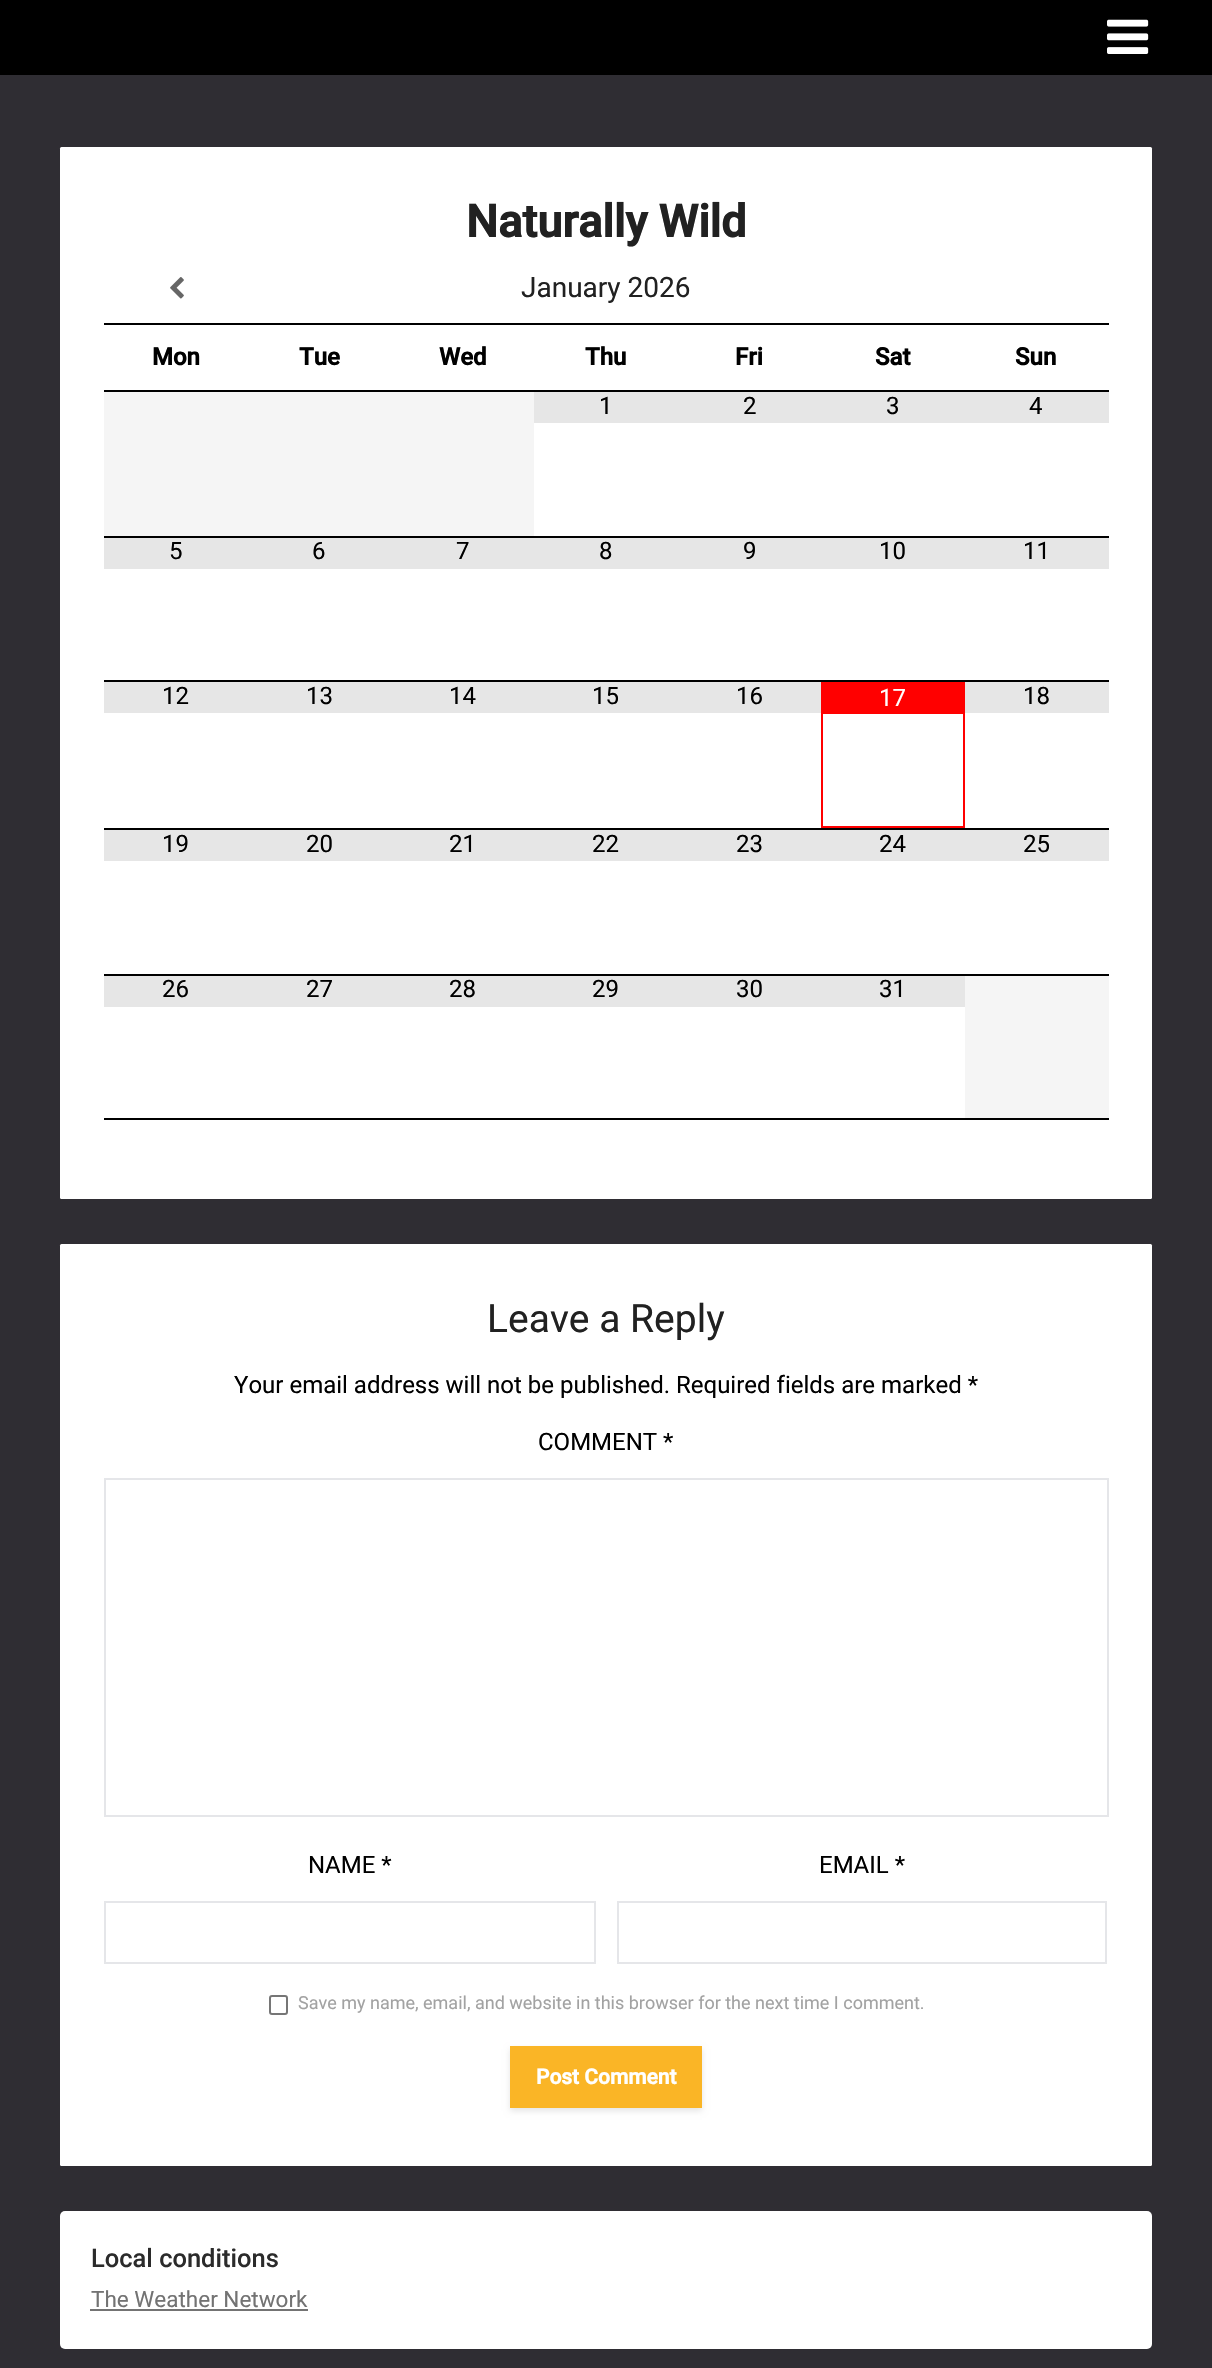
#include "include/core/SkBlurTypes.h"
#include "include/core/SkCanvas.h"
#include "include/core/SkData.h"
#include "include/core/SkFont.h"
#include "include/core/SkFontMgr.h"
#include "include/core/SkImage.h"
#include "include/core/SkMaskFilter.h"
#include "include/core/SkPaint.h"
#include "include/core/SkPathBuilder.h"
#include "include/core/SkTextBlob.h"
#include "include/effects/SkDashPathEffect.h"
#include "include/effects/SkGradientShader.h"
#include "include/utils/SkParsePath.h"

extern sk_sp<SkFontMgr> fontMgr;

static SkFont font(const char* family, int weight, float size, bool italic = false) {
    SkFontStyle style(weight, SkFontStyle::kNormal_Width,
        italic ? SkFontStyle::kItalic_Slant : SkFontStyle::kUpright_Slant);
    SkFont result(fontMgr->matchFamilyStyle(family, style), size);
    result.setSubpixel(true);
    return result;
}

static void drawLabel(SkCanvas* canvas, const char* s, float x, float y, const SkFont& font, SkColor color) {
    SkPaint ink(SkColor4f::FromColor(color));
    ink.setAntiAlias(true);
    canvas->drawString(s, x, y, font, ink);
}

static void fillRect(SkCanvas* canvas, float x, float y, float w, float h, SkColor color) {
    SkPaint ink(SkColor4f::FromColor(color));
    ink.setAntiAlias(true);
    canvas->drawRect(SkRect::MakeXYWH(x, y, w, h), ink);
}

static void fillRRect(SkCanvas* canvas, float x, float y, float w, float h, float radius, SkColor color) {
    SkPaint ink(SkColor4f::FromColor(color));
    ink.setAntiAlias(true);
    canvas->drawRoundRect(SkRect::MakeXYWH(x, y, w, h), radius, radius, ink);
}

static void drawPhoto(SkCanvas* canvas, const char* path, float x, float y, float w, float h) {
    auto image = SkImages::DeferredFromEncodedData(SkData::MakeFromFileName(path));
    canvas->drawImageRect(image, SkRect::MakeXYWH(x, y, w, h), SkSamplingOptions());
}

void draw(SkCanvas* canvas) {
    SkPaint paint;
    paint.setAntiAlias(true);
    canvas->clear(0xFF2F2D33);
    fillRect(canvas, 0, 0, 1212, 75, 0xFF000000);
    drawPhoto(canvas, "assets/img1.png", 1107, 19, 42, 35);
    fillRRect(canvas, 60, 147, 1092, 1052, 1.5f, 0xFFFFFFFF);
    SkFont font1 = font("Roboto", 700, 45);
    drawLabel(canvas, "Naturally Wild", 466, 237, font1, 0xFF212121);
    fillRect(canvas, 104, 323, 1005, 2, 0xFF000000);
    drawPhoto(canvas, "assets/img2.png", 170, 277, 14, 22);
    SkFont font2 = font("Roboto", 400, 28);
    drawLabel(canvas, "January 2026", 521, 297, font2, 0xFF212121);
    fillRect(canvas, 104, 390, 1005, 2, 0xFF000000);
    SkFont font3 = font("Roboto", 700, 24);
    drawLabel(canvas, "Mon", 152, 365, font3, 0xFF000000);
    drawLabel(canvas, "Tue", 299, 365, font3, 0xFF000000);
    drawLabel(canvas, "Wed", 439, 365, font3, 0xFF000000);
    drawLabel(canvas, "Thu", 585, 365, font3, 0xFF000000);
    drawLabel(canvas, "Fri", 735, 365, font3, 0xFF000000);
    drawLabel(canvas, "Sat", 875, 365, font3, 0xFF000000);
    drawLabel(canvas, "Sun", 1015, 365, font3, 0xFF000000);
    fillRect(canvas, 104, 536, 1005, 2, 0xFF000000);
    fillRect(canvas, 104, 392, 430, 144, 0xFFF5F5F5);
    fillRect(canvas, 534, 392, 575, 31, 0xFFE6E6E6);
    SkFont font4 = font("Roboto", 400, 24);
    drawLabel(canvas, "1", 599, 414, font4, 0xFF000000);
    drawLabel(canvas, "2", 743, 414, font4, 0xFF000000);
    drawLabel(canvas, "3", 886, 414, font4, 0xFF000000);
    drawLabel(canvas, "4", 1029, 414, font4, 0xFF000000);
    paint.setStroke(true);
    paint.setStrokeWidth(2);
    paint.setColor(0xFFFF0000);
    canvas->drawRect(SkRect::MakeXYWH(822, 682, 142, 145), paint);
    fillRect(canvas, 104, 680, 1005, 2, 0xFF000000);
    fillRect(canvas, 104, 538, 1005, 31, 0xFFE6E6E6);
    drawLabel(canvas, "5", 169, 559, font4, 0xFF000000);
    drawLabel(canvas, "6", 312, 559, font4, 0xFF000000);
    drawLabel(canvas, "7", 456, 559, font4, 0xFF000000);
    drawLabel(canvas, "8", 599, 559, font4, 0xFF000000);
    drawLabel(canvas, "9", 743, 559, font4, 0xFF000000);
    drawLabel(canvas, "10", 879, 559, font4, 0xFF000000);
    drawLabel(canvas, "11", 1023, 559, font4, 0xFF000000);
    fillRect(canvas, 104, 828, 1005, 2, 0xFF000000);
    fillRect(canvas, 104, 682, 717, 31, 0xFFE6E6E6);
    drawLabel(canvas, "12", 162, 704, font4, 0xFF000000);
    drawLabel(canvas, "13", 306, 704, font4, 0xFF000000);
    drawLabel(canvas, "14", 449, 704, font4, 0xFF000000);
    drawLabel(canvas, "15", 592, 704, font4, 0xFF000000);
    drawLabel(canvas, "16", 736, 704, font4, 0xFF000000);
    fillRect(canvas, 823, 683, 140, 31, 0xFFFF0000);
    drawLabel(canvas, "17", 879, 706, font4, 0xFFFFFFFF);
    fillRect(canvas, 965, 682, 144, 31, 0xFFE6E6E6);
    drawLabel(canvas, "18", 1023, 704, font4, 0xFF000000);
    fillRect(canvas, 104, 974, 1005, 2, 0xFF000000);
    fillRect(canvas, 104, 830, 1005, 31, 0xFFE6E6E6);
    drawLabel(canvas, "19", 162, 852, font4, 0xFF000000);
    drawLabel(canvas, "20", 306, 852, font4, 0xFF000000);
    drawLabel(canvas, "21", 449, 852, font4, 0xFF000000);
    drawLabel(canvas, "22", 592, 852, font4, 0xFF000000);
    drawLabel(canvas, "23", 736, 852, font4, 0xFF000000);
    drawLabel(canvas, "24", 879, 852, font4, 0xFF000000);
    drawLabel(canvas, "25", 1023, 852, font4, 0xFF000000);
    fillRect(canvas, 104, 1118, 1005, 2, 0xFF000000);
    fillRect(canvas, 104, 976, 861, 31, 0xFFE6E6E6);
    drawLabel(canvas, "26", 162, 997, font4, 0xFF000000);
    drawLabel(canvas, "27", 306, 997, font4, 0xFF000000);
    drawLabel(canvas, "28", 449, 997, font4, 0xFF000000);
    drawLabel(canvas, "29", 592, 997, font4, 0xFF000000);
    drawLabel(canvas, "30", 736, 997, font4, 0xFF000000);
    drawLabel(canvas, "31", 879, 997, font4, 0xFF000000);
    fillRect(canvas, 965, 976, 144, 142, 0xFFF5F5F5);
    fillRRect(canvas, 60, 1244, 1092, 922, 1.5f, 0xFFFFFFFF);
    SkFont font5 = font("Roboto", 400, 39);
    drawLabel(canvas, "Leave a Reply", 487, 1332, font5, 0xFF212121);
    drawLabel(canvas, "Your email address will not be published. Required fields are marked *", 234, 1393, font4, 0xFF000000);
    drawLabel(canvas, "COMMENT *", 538, 1450, font4, 0xFF000000);
    paint.setColor(0xFFE5E6E9);
    canvas->drawRect(SkRect::MakeXYWH(105, 1479, 1003, 337), paint);
    drawLabel(canvas, "NAME *", 308, 1873, font4, 0xFF000000);
    canvas->drawRect(SkRect::MakeXYWH(105, 1902, 490, 61), paint);
    drawLabel(canvas, "EMAIL *", 819, 1873, font4, 0xFF000000);
    canvas->drawRect(SkRect::MakeXYWH(618, 1902, 488, 61), paint);
    paint.setColor(0xFF767676);
    canvas->drawRoundRect(SkRect::MakeXYWH(270, 1996, 17, 18), 2, 2, paint);
    SkFont font6 = font("Roboto", 400, 18);
    drawLabel(canvas, "Save my name, email, and website in this browser for the next time I comment.", 298, 2009, font6, 0xFFA2A2A2);
    paint.setStroke(false);
    paint.setColor(0x1A000000);
    paint.setMaskFilter(SkMaskFilter::MakeBlur(kNormal_SkBlurStyle, 3));
    canvas->drawRect(SkRect::MakeXYWH(510, 2049, 192, 62), paint);
    paint.setMaskFilter(nullptr);
    fillRect(canvas, 510, 2046, 192, 62, 0xFFFAB526);
    SkFont font7 = font("Roboto", 700, 21);
    drawLabel(canvas, "Post Comment", 536, 2084, font7, 0xFFFFFFFF);
    fillRRect(canvas, 60, 2211, 1092, 138, 5, 0xFFFFFFFF);
    SkFont font8 = font("Roboto", 500, 25.5f);
    drawLabel(canvas, "Local conditions", 91, 2267, font8, 0xFF2B2B2B);
    SkFont font9 = font("Roboto", 400, 22.5f);
    drawLabel(canvas, "The Weather Network", 91, 2307, font9, 0xFF737373);
    fillRect(canvas, 90, 2309, 218, 2, 0xFF737373);
}
